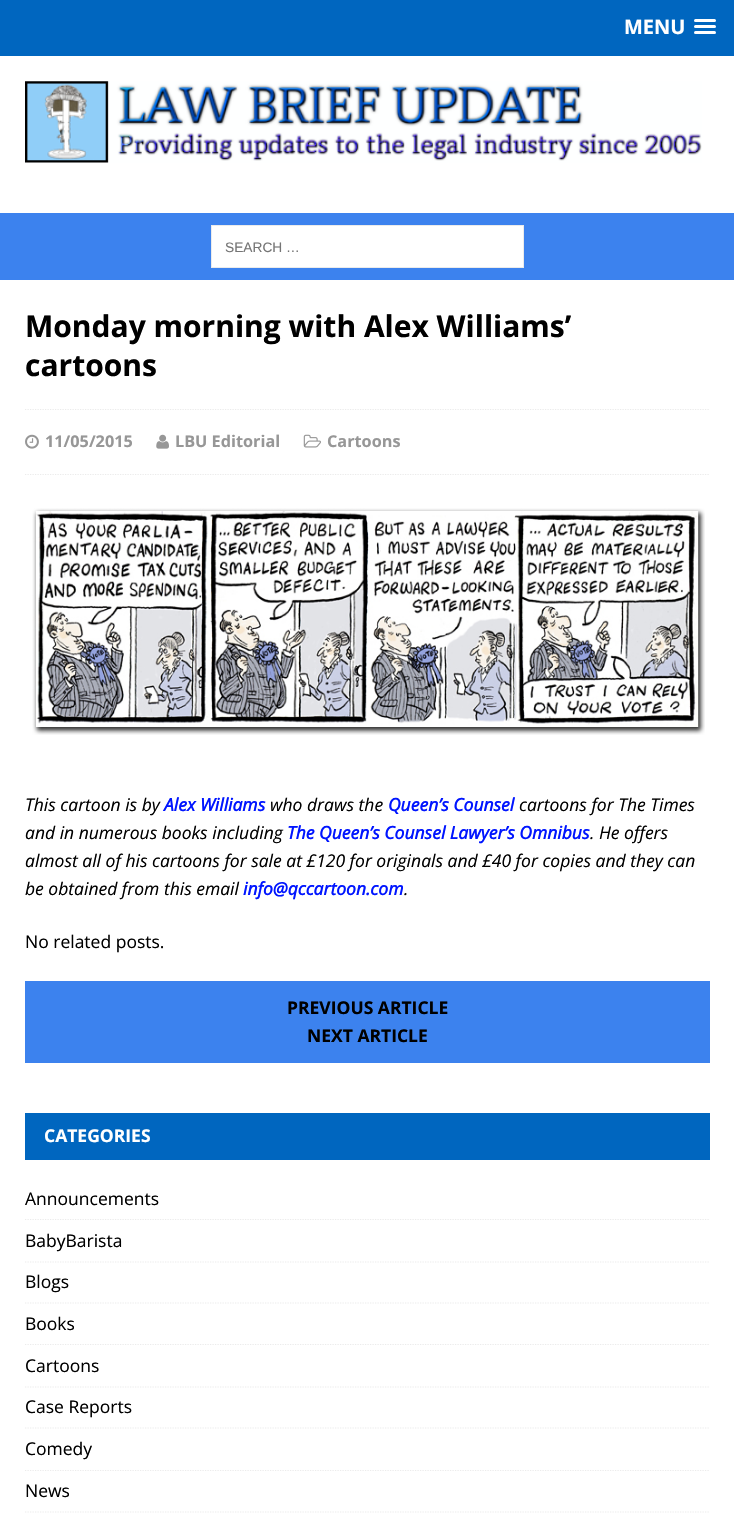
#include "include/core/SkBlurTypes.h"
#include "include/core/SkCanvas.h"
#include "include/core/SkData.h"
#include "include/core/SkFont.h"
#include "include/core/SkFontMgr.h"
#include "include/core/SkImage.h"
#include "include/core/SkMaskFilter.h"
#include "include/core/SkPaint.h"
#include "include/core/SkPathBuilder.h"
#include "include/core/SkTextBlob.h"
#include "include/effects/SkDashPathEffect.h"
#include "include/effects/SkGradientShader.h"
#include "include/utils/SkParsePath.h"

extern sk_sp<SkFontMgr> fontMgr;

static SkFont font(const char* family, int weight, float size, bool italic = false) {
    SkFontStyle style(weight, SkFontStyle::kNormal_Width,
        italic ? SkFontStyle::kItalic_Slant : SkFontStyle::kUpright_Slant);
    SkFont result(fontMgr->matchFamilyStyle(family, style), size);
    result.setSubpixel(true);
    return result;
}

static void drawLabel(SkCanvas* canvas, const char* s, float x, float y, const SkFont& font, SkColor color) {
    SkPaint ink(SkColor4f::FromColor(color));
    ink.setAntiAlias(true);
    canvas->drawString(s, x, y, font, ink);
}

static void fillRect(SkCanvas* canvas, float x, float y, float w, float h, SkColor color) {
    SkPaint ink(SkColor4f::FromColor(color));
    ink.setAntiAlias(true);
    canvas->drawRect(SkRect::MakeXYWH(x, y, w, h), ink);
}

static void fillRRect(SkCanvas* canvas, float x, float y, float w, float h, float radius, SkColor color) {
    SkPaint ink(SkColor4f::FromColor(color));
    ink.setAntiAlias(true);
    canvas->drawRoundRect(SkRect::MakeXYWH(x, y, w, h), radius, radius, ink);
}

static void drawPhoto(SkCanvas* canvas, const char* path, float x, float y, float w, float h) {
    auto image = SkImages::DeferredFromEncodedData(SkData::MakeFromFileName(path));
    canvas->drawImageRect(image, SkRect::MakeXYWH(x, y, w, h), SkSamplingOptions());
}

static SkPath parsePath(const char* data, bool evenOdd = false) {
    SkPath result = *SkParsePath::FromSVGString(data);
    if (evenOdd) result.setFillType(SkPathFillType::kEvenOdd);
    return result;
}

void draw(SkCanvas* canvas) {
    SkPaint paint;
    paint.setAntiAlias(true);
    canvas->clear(0xFF0066BF);
    SkFont font1 = font("Open Sans", 700, 20);
    drawLabel(canvas, "MENU", 624, 34, font1, 0xFFFFFFFF);
    fillRRect(canvas, 694, 19, 22, 3, 1.5f, 0xFFFFFFFF);
    fillRRect(canvas, 694, 25, 22, 3, 1.5f, 0xFFFFFFFF);
    fillRRect(canvas, 694, 31, 22, 3, 1.5f, 0xFFFFFFFF);
    fillRect(canvas, 0, 56, 734, 157, 0xFFFFFFFF);
    drawPhoto(canvas, "assets/img1.png", 25, 81, 677, 82);
    fillRect(canvas, 0, 213, 734, 67, 0xFF3C82EE);
    paint.setColor(0xFFFFFFFF);
    canvas->drawRect(SkRect::MakeXYWH(211.5f, 225.5f, 312, 42), paint);
    paint.setStroke(true);
    paint.setStrokeWidth(1);
    paint.setColor(0xFFEBEBEB);
    canvas->drawRect(SkRect::MakeXYWH(211.5f, 225.5f, 312, 42), paint);
    SkFont font2 = font("Liberation Sans", 400, 13.75f);
    drawLabel(canvas, "SEARCH …", 225, 252, font2, 0xFF757575);
    fillRect(canvas, 0, 280, 734, 1254, 0xFFFFFFFF);
    SkFont font3 = font("Open Sans", 700, 30);
    drawLabel(canvas, "Monday morning with Alex Williams’", 25, 337, font3, 0xFF000000);
    drawLabel(canvas, "cartoons", 25, 376, font3, 0xFF000000);
    paint.setStrokeWidth(1.2f);
    paint.setPathEffect(SkDashPathEffect::Make({{1.25f, 1.25f}}, 0));
    canvas->drawPath(parsePath("M25 409.5H710"), paint);
    paint.setPathEffect(nullptr);
    paint.setPathEffect(SkDashPathEffect::Make({{1.25f, 1.25f}}, 0));
    canvas->drawPath(parsePath("M25 474.5H710"), paint);
    paint.setPathEffect(nullptr);
    drawPhoto(canvas, "assets/img2.png", 25, 434, 14, 15);
    SkFont font4 = font("Open Sans", 700, 16.25f);
    drawLabel(canvas, "11/05/2015", 45, 447, font4, 0xFF979797);
    drawPhoto(canvas, "assets/img3.png", 156, 434, 13, 15);
    drawLabel(canvas, "LBU Editorial", 175, 447, font4, 0xFF979797);
    drawPhoto(canvas, "assets/img4.png", 303, 434, 18, 14);
    drawLabel(canvas, "Cartoons", 327, 447, font4, 0xFF979797);
    drawPhoto(canvas, "assets/img5.png", 32, 508, 673, 227);
    SkFont font5 = font("Open Sans", 400, 17.5f, true);
    drawLabel(canvas, "This cartoon is by", 25, 811, font5, 0xFF000000);
    SkFont font6 = font("Open Sans", 700, 17.5f, true);
    drawLabel(canvas, "Alex Williams", 164, 811, font6, 0xFF0015FF);
    drawLabel(canvas, "who draws the", 270, 811, font5, 0xFF000000);
    drawLabel(canvas, "Queen’s Counsel", 388, 811, font6, 0xFF0015FF);
    drawLabel(canvas, "cartoons for The Times", 519, 811, font5, 0xFF000000);
    drawLabel(canvas, "and in numerous books including", 25, 839, font5, 0xFF000000);
    drawLabel(canvas, "The Queen’s Counsel Lawyer’s Omnibus", 287, 839, font6, 0xFF0015FF);
    drawLabel(canvas, ". He offers", 590, 839, font5, 0xFF000000);
    drawLabel(canvas, "almost all of his cartoons for sale at £120 for originals and £40 for copies and they can", 25, 867, font5, 0xFF000000);
    drawLabel(canvas, "be obtained from this email", 25, 895, font5, 0xFF000000);
    drawLabel(canvas, "info@qccartoon.com", 243, 895, font6, 0xFF0015FF);
    drawLabel(canvas, ".", 404, 895, font5, 0xFF000000);
    SkFont font7 = font("Open Sans", 400, 17.5f);
    drawLabel(canvas, "No related posts.", 25, 948, font7, 0xFF000000);
    fillRect(canvas, 25, 981, 685, 82, 0xFF3C82EE);
    SkFont font8 = font("Open Sans", 700, 17.5f);
    drawLabel(canvas, "PREVIOUS ARTICLE", 287, 1014, font8, 0xFF000000);
    drawLabel(canvas, "NEXT ARTICLE", 307, 1042, font8, 0xFF000000);
    fillRect(canvas, 25, 1113, 685, 47, 0xFF0066BF);
    drawLabel(canvas, "CATEGORIES", 44, 1142, font8, 0xFFFFFFFF);
    paint.setPathEffect(SkDashPathEffect::Make({{1.25f, 1.25f}}, 0));
    canvas->drawPath(parsePath("M25 1219.5H710"), paint);
    paint.setPathEffect(nullptr);
    drawLabel(canvas, "Announcements", 25, 1205, font7, 0xFF000000);
    paint.setPathEffect(SkDashPathEffect::Make({{1.25f, 1.25f}}, 0));
    canvas->drawPath(parsePath("M25 1262H710"), paint);
    paint.setPathEffect(nullptr);
    drawLabel(canvas, "BabyBarista", 25, 1247, font7, 0xFF000000);
    paint.setPathEffect(SkDashPathEffect::Make({{1.25f, 1.25f}}, 0));
    canvas->drawPath(parsePath("M25 1303H710"), paint);
    paint.setPathEffect(nullptr);
    drawLabel(canvas, "Blogs", 25, 1288, font7, 0xFF000000);
    paint.setPathEffect(SkDashPathEffect::Make({{1.25f, 1.25f}}, 0));
    canvas->drawPath(parsePath("M25 1344.5H710"), paint);
    paint.setPathEffect(nullptr);
    drawLabel(canvas, "Books", 25, 1330, font7, 0xFF000000);
    paint.setPathEffect(SkDashPathEffect::Make({{1.25f, 1.25f}}, 0));
    canvas->drawPath(parsePath("M25 1387H710"), paint);
    paint.setPathEffect(nullptr);
    drawLabel(canvas, "Cartoons", 25, 1372, font7, 0xFF000000);
    paint.setPathEffect(SkDashPathEffect::Make({{1.25f, 1.25f}}, 0));
    canvas->drawPath(parsePath("M25 1428H710"), paint);
    paint.setPathEffect(nullptr);
    drawLabel(canvas, "Case Reports", 25, 1413, font7, 0xFF000000);
    paint.setPathEffect(SkDashPathEffect::Make({{1.25f, 1.25f}}, 0));
    canvas->drawPath(parsePath("M25 1470.5H710"), paint);
    paint.setPathEffect(nullptr);
    drawLabel(canvas, "Comedy", 25, 1455, font7, 0xFF000000);
    paint.setPathEffect(SkDashPathEffect::Make({{1.25f, 1.25f}}, 0));
    canvas->drawPath(parsePath("M25 1512H710"), paint);
    paint.setPathEffect(nullptr);
    drawLabel(canvas, "News", 25, 1497, font7, 0xFF000000);
}
